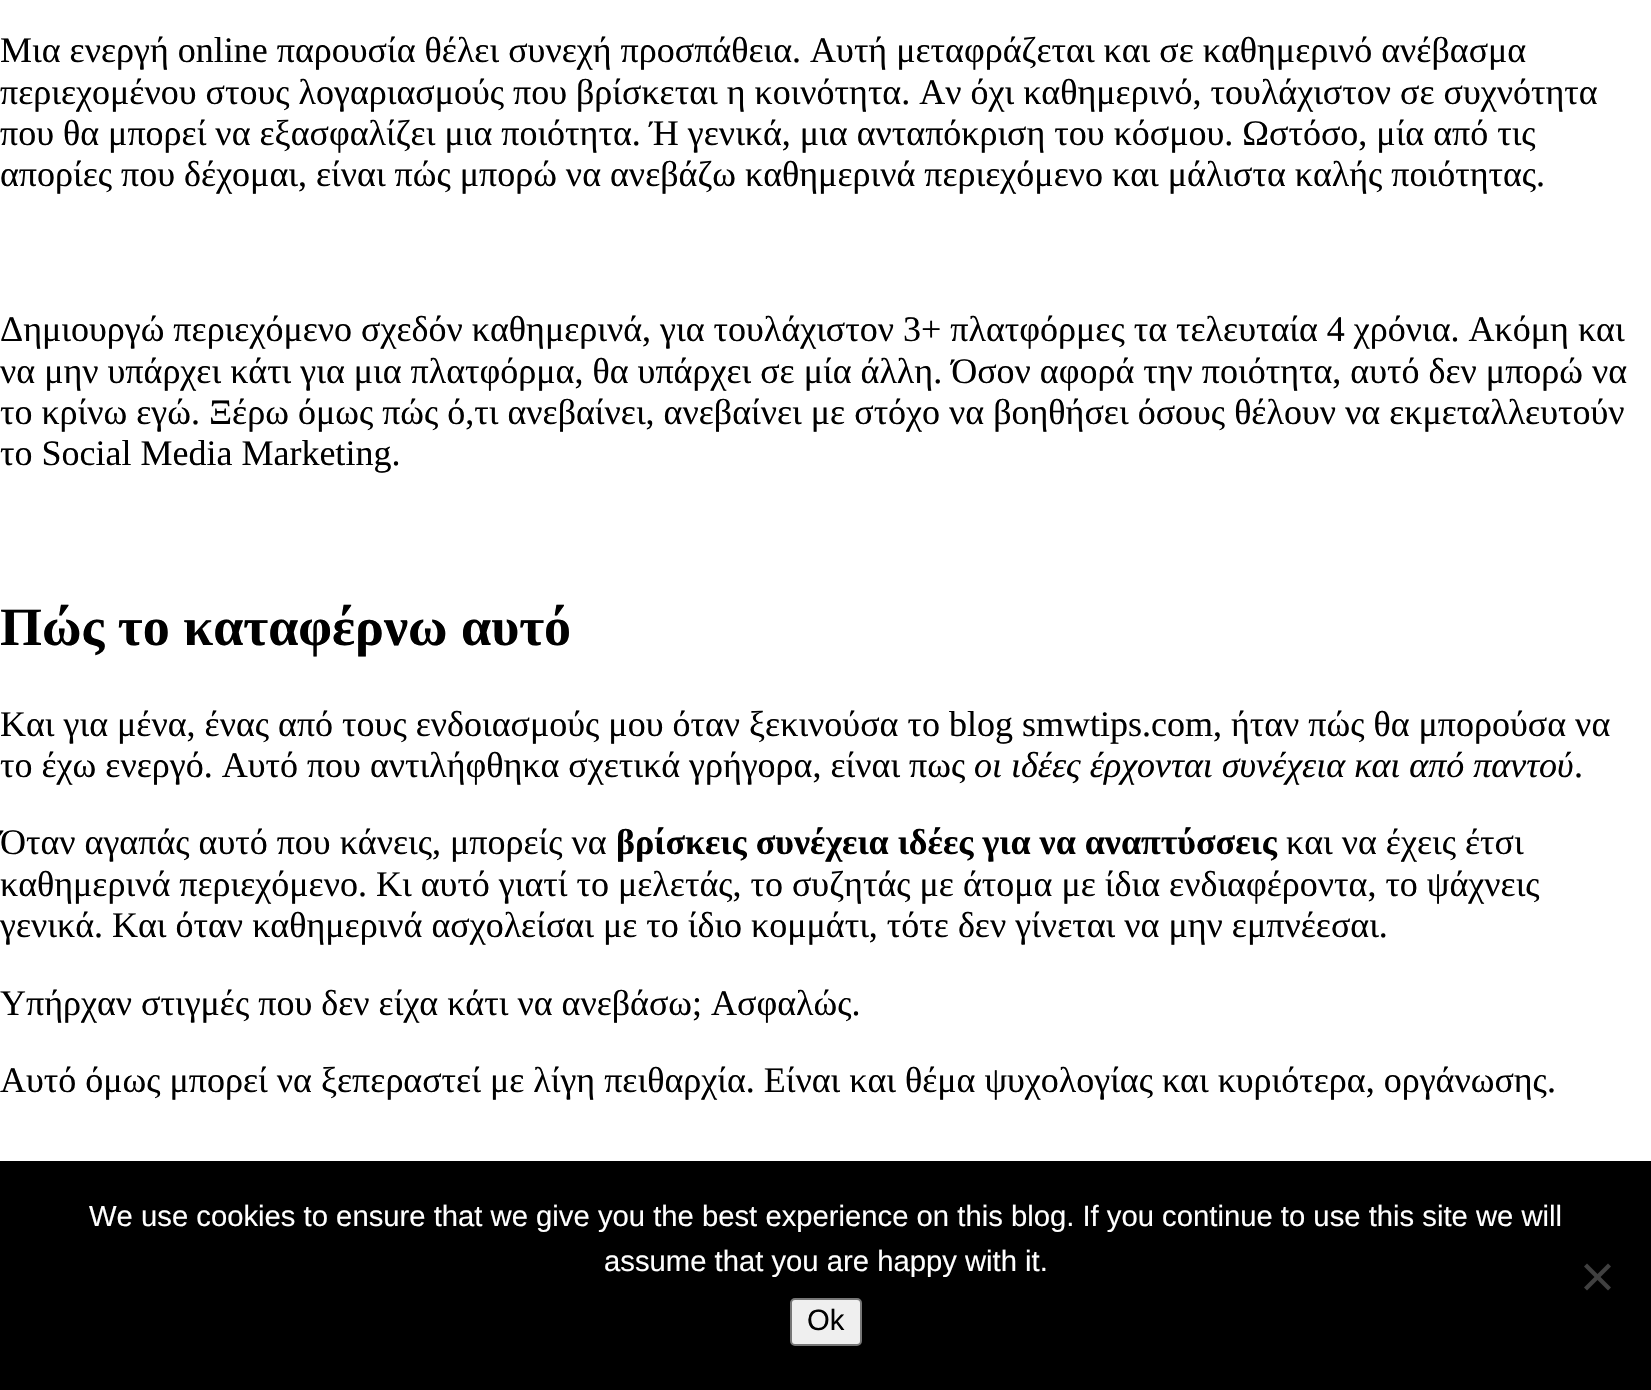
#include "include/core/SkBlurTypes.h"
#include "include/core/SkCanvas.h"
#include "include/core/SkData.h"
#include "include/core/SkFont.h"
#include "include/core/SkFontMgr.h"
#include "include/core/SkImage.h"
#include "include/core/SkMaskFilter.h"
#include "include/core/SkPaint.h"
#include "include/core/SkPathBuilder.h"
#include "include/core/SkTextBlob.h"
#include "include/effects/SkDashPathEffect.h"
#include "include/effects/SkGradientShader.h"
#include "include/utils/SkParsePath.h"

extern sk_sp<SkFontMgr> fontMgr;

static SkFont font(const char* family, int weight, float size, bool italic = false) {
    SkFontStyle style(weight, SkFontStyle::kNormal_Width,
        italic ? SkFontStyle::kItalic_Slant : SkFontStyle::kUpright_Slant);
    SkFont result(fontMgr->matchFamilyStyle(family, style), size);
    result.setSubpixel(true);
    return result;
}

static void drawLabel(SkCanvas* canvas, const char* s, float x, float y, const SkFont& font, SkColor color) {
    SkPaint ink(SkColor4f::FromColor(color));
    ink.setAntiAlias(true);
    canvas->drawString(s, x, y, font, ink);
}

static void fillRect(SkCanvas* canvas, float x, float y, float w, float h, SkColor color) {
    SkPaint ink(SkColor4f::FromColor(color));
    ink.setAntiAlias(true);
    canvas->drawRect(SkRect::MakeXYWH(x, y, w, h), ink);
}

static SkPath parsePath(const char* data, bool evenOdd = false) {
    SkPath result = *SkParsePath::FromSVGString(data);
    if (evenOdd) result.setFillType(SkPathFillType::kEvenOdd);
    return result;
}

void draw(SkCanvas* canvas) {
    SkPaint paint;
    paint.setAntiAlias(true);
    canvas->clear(0xFFFFFFFF);
    SkFont font1 = font("Liberation Serif", 400, 36);
    drawLabel(canvas, "Μια ενεργή online παρουσία θέλει συνεχή προσπάθεια. Αυτή μεταφράζεται και σε καθημερινό ανέβασμα", 0, 62, font1, 0xFF000000);
    drawLabel(canvas, "περιεχομένου στους λογαριασμούς που βρίσκεται η κοινότητα. Αν όχι καθημερινό, τουλάχιστον σε συχνότητα", 0, 104, font1, 0xFF000000);
    drawLabel(canvas, "που θα μπορεί να εξασφαλίζει μια ποιότητα. Ή γενικά, μια ανταπόκριση του κόσμου. Ωστόσο, μία από τις", 0, 145, font1, 0xFF000000);
    drawLabel(canvas, "απορίες που δέχομαι, είναι πώς μπορώ να ανεβάζω καθημερινά περιεχόμενο και μάλιστα καλής ποιότητας.", 0, 186, font1, 0xFF000000);
    drawLabel(canvas, "Δημιουργώ περιεχόμενο σχεδόν καθημερινά, για τουλάχιστον 3+ πλατφόρμες τα τελευταία 4 χρόνια. Ακόμη και", 0, 341, font1, 0xFF000000);
    drawLabel(canvas, "να μην υπάρχει κάτι για μια πλατφόρμα, θα υπάρχει σε μία άλλη. Όσον αφορά την ποιότητα, αυτό δεν μπορώ να", 0, 383, font1, 0xFF000000);
    drawLabel(canvas, "το κρίνω εγώ. Ξέρω όμως πώς ό,τι ανεβαίνει, ανεβαίνει με στόχο να βοηθήσει όσους θέλουν να εκμεταλλευτούν", 0, 424, font1, 0xFF000000);
    drawLabel(canvas, "το Social Media Marketing.", 0, 465, font1, 0xFF000000);
    SkFont font2 = font("Liberation Serif", 700, 54);
    drawLabel(canvas, "Πώς το καταφέρνω αυτό", 0, 645, font2, 0xFF000000);
    drawLabel(canvas, "Και για μένα, ένας από τους ενδοιασμούς μου όταν ξεκινούσα το blog smwtips.com, ήταν πώς θα μπορούσα να", 0, 736, font1, 0xFF000000);
    drawLabel(canvas, "το έχω ενεργό. Αυτό που αντιλήφθηκα σχετικά γρήγορα, είναι πως", 0, 777, font1, 0xFF000000);
    SkFont font3 = font("Liberation Serif", 400, 36, true);
    drawLabel(canvas, "οι ιδέες έρχονται συνέχεια και από παντού", 974, 777, font3, 0xFF000000);
    drawLabel(canvas, ".", 1574, 777, font1, 0xFF000000);
    drawLabel(canvas, "Όταν αγαπάς αυτό που κάνεις, μπορείς να", 0, 854, font1, 0xFF000000);
    SkFont font4 = font("Liberation Serif", 700, 36);
    drawLabel(canvas, "βρίσκεις συνέχεια ιδέες για να αναπτύσσεις", 616, 854, font4, 0xFF000000);
    drawLabel(canvas, "και να έχεις έτσι", 1286, 854, font1, 0xFF000000);
    drawLabel(canvas, "καθημερινά περιεχόμενο. Κι αυτό γιατί το μελετάς, το συζητάς με άτομα με ίδια ενδιαφέροντα, το ψάχνεις", 0, 896, font1, 0xFF000000);
    drawLabel(canvas, "γενικά. Και όταν καθημερινά ασχολείσαι με το ίδιο κομμάτι, τότε δεν γίνεται να μην εμπνέεσαι.", 0, 937, font1, 0xFF000000);
    drawLabel(canvas, "Υπήρχαν στιγμές που δεν είχα κάτι να ανεβάσω; Ασφαλώς.", 0, 1015, font1, 0xFF000000);
    drawLabel(canvas, "Αυτό όμως μπορεί να ξεπεραστεί με λίγη πειθαρχία. Είναι και θέμα ψυχολογίας και κυριότερα, οργάνωσης.", 0, 1092, font1, 0xFF000000);
    fillRect(canvas, 0, 1161, 1651, 229, 0xFF000000);
    SkFont font5 = font("Liberation Sans", 400, 29.25f);
    drawLabel(canvas, "We use cookies to ensure that we give you the best experience on this blog. If you continue to use this site we will", 89, 1226, font5, 0xFFFFFFFF);
    drawLabel(canvas, "assume that you are happy with it.", 604, 1271, font5, 0xFFFFFFFF);
    paint.setColor(0xFF404040);
    canvas->drawPath(parsePath("M1608 1263.5L1611 1266.5L1587 1290.5L1584 1287.5Z"), paint);
    canvas->drawPath(parsePath("M1584 1266.5L1587 1263.5L1611 1287.5L1608 1290.5Z"), paint);
    paint.setColor(0xFFEFEFEF);
    canvas->drawRoundRect(SkRect::MakeXYWH(791, 1299, 70, 46), 4, 4, paint);
    paint.setStroke(true);
    paint.setStrokeWidth(2);
    paint.setColor(0xFF767676);
    canvas->drawRoundRect(SkRect::MakeXYWH(791, 1299, 70, 46), 4, 4, paint);
    drawLabel(canvas, "Ok", 807, 1330, font5, 0xFF000000);
}
